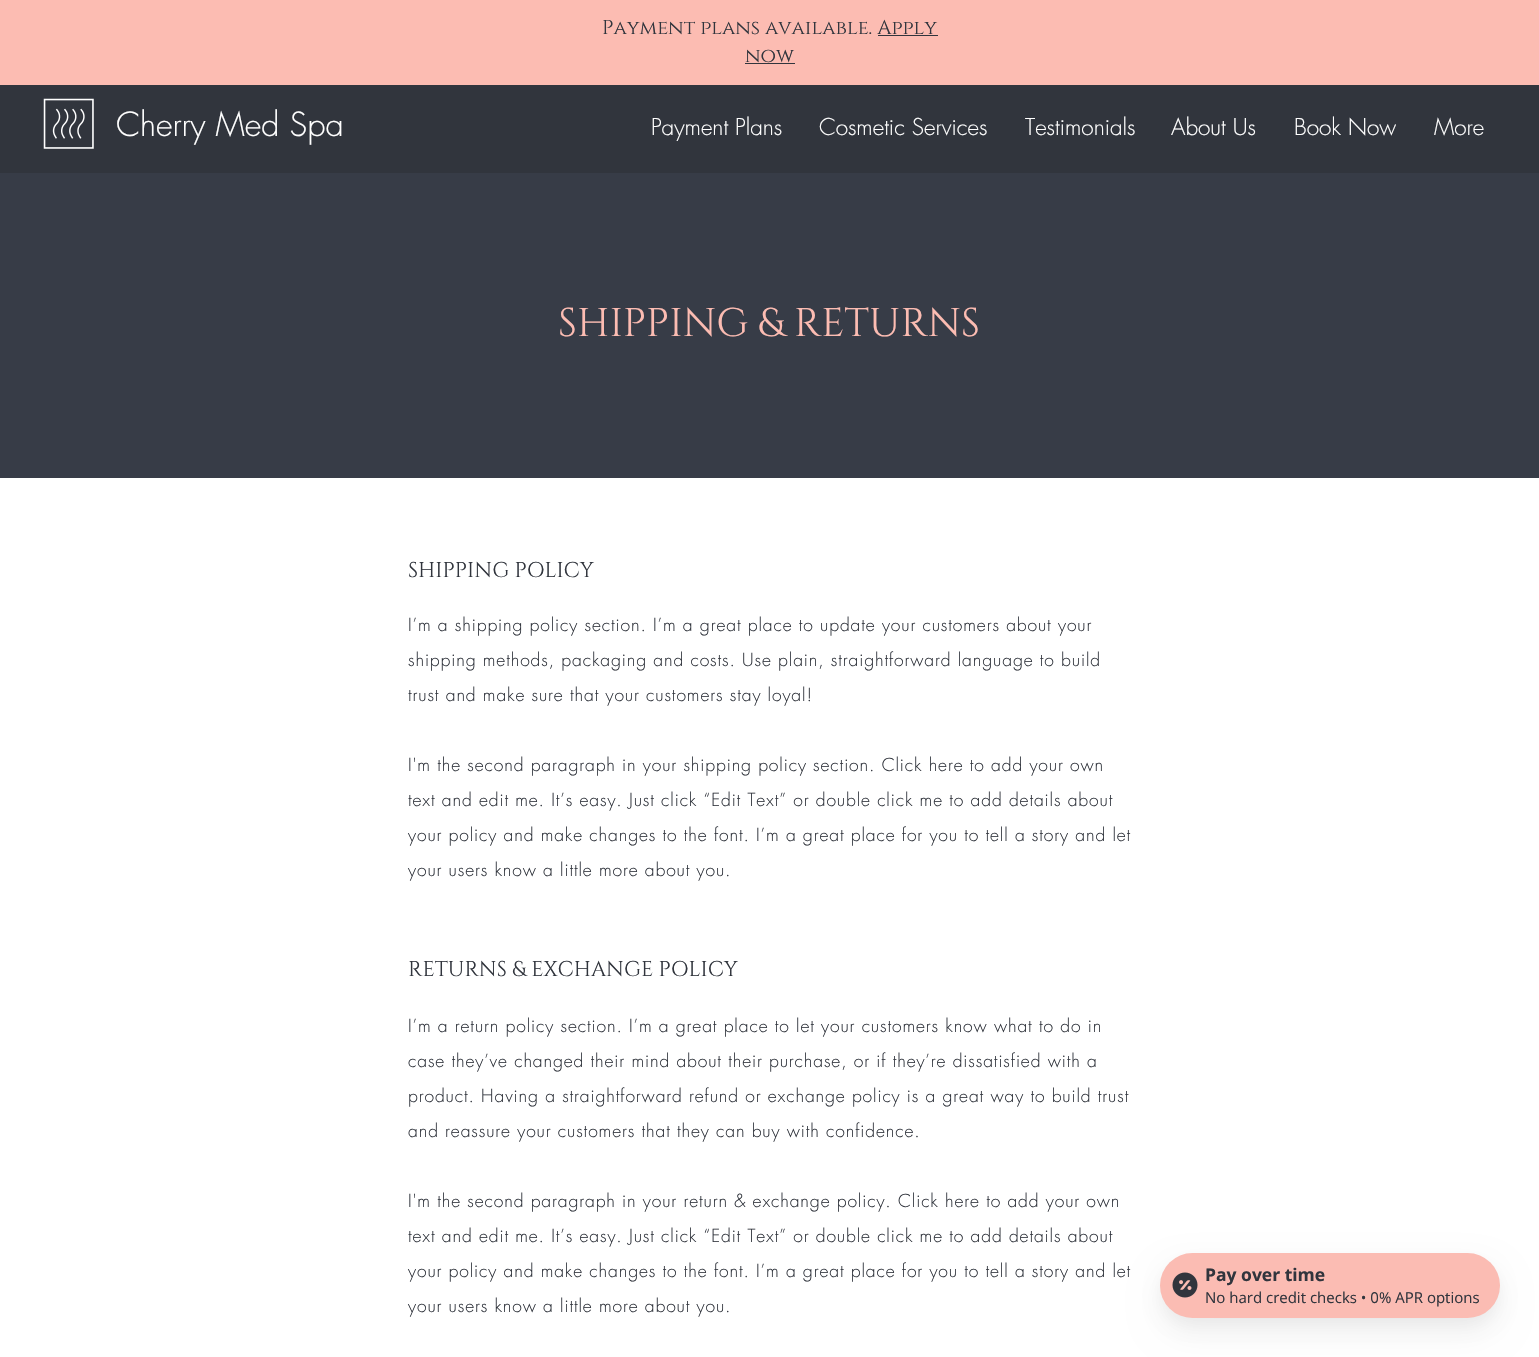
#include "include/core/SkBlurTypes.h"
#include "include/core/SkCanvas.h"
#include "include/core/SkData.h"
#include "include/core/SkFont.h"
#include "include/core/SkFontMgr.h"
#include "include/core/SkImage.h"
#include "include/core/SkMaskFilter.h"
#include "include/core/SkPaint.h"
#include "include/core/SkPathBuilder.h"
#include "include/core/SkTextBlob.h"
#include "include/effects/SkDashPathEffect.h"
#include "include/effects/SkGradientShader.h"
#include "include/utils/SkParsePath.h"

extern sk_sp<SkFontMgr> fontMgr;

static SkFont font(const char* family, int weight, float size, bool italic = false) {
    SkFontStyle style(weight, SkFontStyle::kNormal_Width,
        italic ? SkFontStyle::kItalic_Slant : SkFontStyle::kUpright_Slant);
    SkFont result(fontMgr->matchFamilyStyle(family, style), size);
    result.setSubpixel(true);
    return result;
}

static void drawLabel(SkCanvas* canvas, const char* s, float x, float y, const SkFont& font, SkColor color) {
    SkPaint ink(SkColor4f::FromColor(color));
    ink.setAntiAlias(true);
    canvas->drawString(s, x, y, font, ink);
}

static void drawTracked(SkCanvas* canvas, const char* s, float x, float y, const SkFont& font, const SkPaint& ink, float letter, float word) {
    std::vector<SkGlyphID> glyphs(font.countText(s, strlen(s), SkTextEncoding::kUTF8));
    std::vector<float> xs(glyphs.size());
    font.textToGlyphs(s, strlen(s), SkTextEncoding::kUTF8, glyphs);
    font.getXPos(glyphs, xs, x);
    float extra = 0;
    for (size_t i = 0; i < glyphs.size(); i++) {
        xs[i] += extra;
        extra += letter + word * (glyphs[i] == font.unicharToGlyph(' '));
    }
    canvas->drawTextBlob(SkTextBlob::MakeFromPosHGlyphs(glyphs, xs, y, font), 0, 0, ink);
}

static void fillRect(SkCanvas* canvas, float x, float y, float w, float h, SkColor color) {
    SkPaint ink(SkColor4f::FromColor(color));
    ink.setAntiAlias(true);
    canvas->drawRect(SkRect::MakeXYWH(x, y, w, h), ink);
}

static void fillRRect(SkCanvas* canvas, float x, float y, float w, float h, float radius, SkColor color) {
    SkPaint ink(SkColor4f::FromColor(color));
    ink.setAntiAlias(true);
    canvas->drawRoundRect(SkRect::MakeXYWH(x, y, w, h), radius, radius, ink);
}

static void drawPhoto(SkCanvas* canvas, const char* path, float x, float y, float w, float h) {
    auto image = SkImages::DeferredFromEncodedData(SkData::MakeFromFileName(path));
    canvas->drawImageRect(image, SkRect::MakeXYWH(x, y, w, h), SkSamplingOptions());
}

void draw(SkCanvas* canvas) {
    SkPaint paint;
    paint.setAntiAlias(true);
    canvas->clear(0xFFFFFFFF);
    fillRect(canvas, 0, 0, 1539, 85, 0xFFFCBCB2);
    SkFont font1 = font("Cinzel", 400, 20);
    drawLabel(canvas, "Payment plans available. Apply", 602, 34, font1, 0xFF31353D);
    drawLabel(canvas, "now", 745, 62, font1, 0xFF31353D);
    fillRect(canvas, 878, 35, 60, 1, 0xFF31353D);
    fillRect(canvas, 745, 63, 50, 1, 0xFF31353D);
    fillRect(canvas, 0, 85, 1539, 88, 0xFF31353D);
    drawPhoto(canvas, "assets/img1.png", 43, 98, 51, 51);
    SkFont font2 = font("futura", 300, 32.5f);
    drawLabel(canvas, "Cherry Med Spa", 116, 136, font2, 0xFFFFFFFF);
    SkFont font3 = font("futura", 300, 22.5f);
    drawLabel(canvas, "Payment Plans", 651, 135, font3, 0xFFFFFFFF);
    drawLabel(canvas, "Cosmetic Services", 819, 135, font3, 0xFFFFFFFF);
    drawLabel(canvas, "Testimonials", 1025, 135, font3, 0xFFFFFFFF);
    drawLabel(canvas, "About Us", 1171, 135, font3, 0xFFFFFFFF);
    drawLabel(canvas, "Book Now", 1294, 135, font3, 0xFFFFFFFF);
    drawLabel(canvas, "More", 1434, 135, font3, 0xFFFFFFFF);
    fillRect(canvas, 0, 173, 1539, 305, 0xFF373C47);
    SkFont font4 = font("Cinzel", 400, 40);
    drawLabel(canvas, "SHIPPING & RETURNS", 558, 336, font4, 0xFFFCBCB2);
    SkFont font5 = font("Cinzel", 400, 21.25f);
    drawLabel(canvas, "SHIPPING POLICY", 408, 577, font5, 0xFF31353D);
    SkFont font6 = font("futura", 300, 17.5f);
    paint.setColor(0xFF31353D);
    drawTracked(canvas, "I’m a shipping policy section. I’m a great place to update your customers about your", 408, 631, font6, paint, 0.88f, 0);
    drawTracked(canvas, "shipping methods, packaging and costs. Use plain, straightforward language to build", 408, 666, font6, paint, 0.88f, 0);
    drawTracked(canvas, "trust and make sure that your customers stay loyal!", 408, 701, font6, paint, 0.88f, 0);
    drawTracked(canvas, "I'm the second paragraph in your shipping policy section. Click here to add your own", 408, 771, font6, paint, 0.88f, 0);
    drawTracked(canvas, "text and edit me. It’s easy. Just click “Edit Text” or double click me to add details about", 408, 806, font6, paint, 0.88f, 0);
    drawTracked(canvas, "your policy and make changes to the font. I’m a great place for you to tell a story and let", 408, 841, font6, paint, 0.88f, 0);
    drawTracked(canvas, "your users know a little more about you.", 408, 876, font6, paint, 0.88f, 0);
    drawLabel(canvas, "RETURNS & EXCHANGE POLICY", 408, 976, font5, 0xFF31353D);
    drawTracked(canvas, "I’m a return policy section. I’m a great place to let your customers know what to do in", 408, 1032, font6, paint, 0.88f, 0);
    drawTracked(canvas, "case they’ve changed their mind about their purchase, or if they’re dissatisfied with a", 408, 1067, font6, paint, 0.88f, 0);
    drawTracked(canvas, "product. Having a straightforward refund or exchange policy is a great way to build trust", 408, 1102, font6, paint, 0.88f, 0);
    drawTracked(canvas, "and reassure your customers that they can buy with confidence.", 408, 1137, font6, paint, 0.88f, 0);
    drawTracked(canvas, "I'm the second paragraph in your return & exchange policy. Click here to add your own", 408, 1207, font6, paint, 0.88f, 0);
    drawTracked(canvas, "text and edit me. It’s easy. Just click “Edit Text” or double click me to add details about", 408, 1242, font6, paint, 0.88f, 0);
    drawTracked(canvas, "your policy and make changes to the font. I’m a great place for you to tell a story and let", 408, 1277, font6, paint, 0.88f, 0);
    drawTracked(canvas, "your users know a little more about you.", 408, 1312, font6, paint, 0.88f, 0);
    paint.setColor(0x0A000000);
    paint.setMaskFilter(SkMaskFilter::MakeBlur(kNormal_SkBlurStyle, 7.5f));
    canvas->drawRoundRect(SkRect::MakeXYWH(1160, 1260, 340, 65), 32.5f, 32.5f, paint);
    paint.setMaskFilter(nullptr);
    paint.setColor(0x0D000000);
    paint.setMaskFilter(SkMaskFilter::MakeBlur(kNormal_SkBlurStyle, 15.5f));
    canvas->drawRoundRect(SkRect::MakeXYWH(1160, 1269, 340, 65), 32.5f, 32.5f, paint);
    paint.setMaskFilter(nullptr);
    fillRRect(canvas, 1160, 1253, 340, 65, 32.5f, 0xFFFBBCB3);
    drawPhoto(canvas, "assets/img2.png", 1172, 1272, 26, 26);
    SkFont font7 = font("Open Sans", 700, 17.5f);
    drawLabel(canvas, "Pay over time", 1205, 1281, font7, 0xFF31353D);
    SkFont font8 = font("Open Sans", 400, 15);
    drawLabel(canvas, "No hard credit checks • 0% APR options", 1205, 1303, font8, 0xFF31353D);
}
